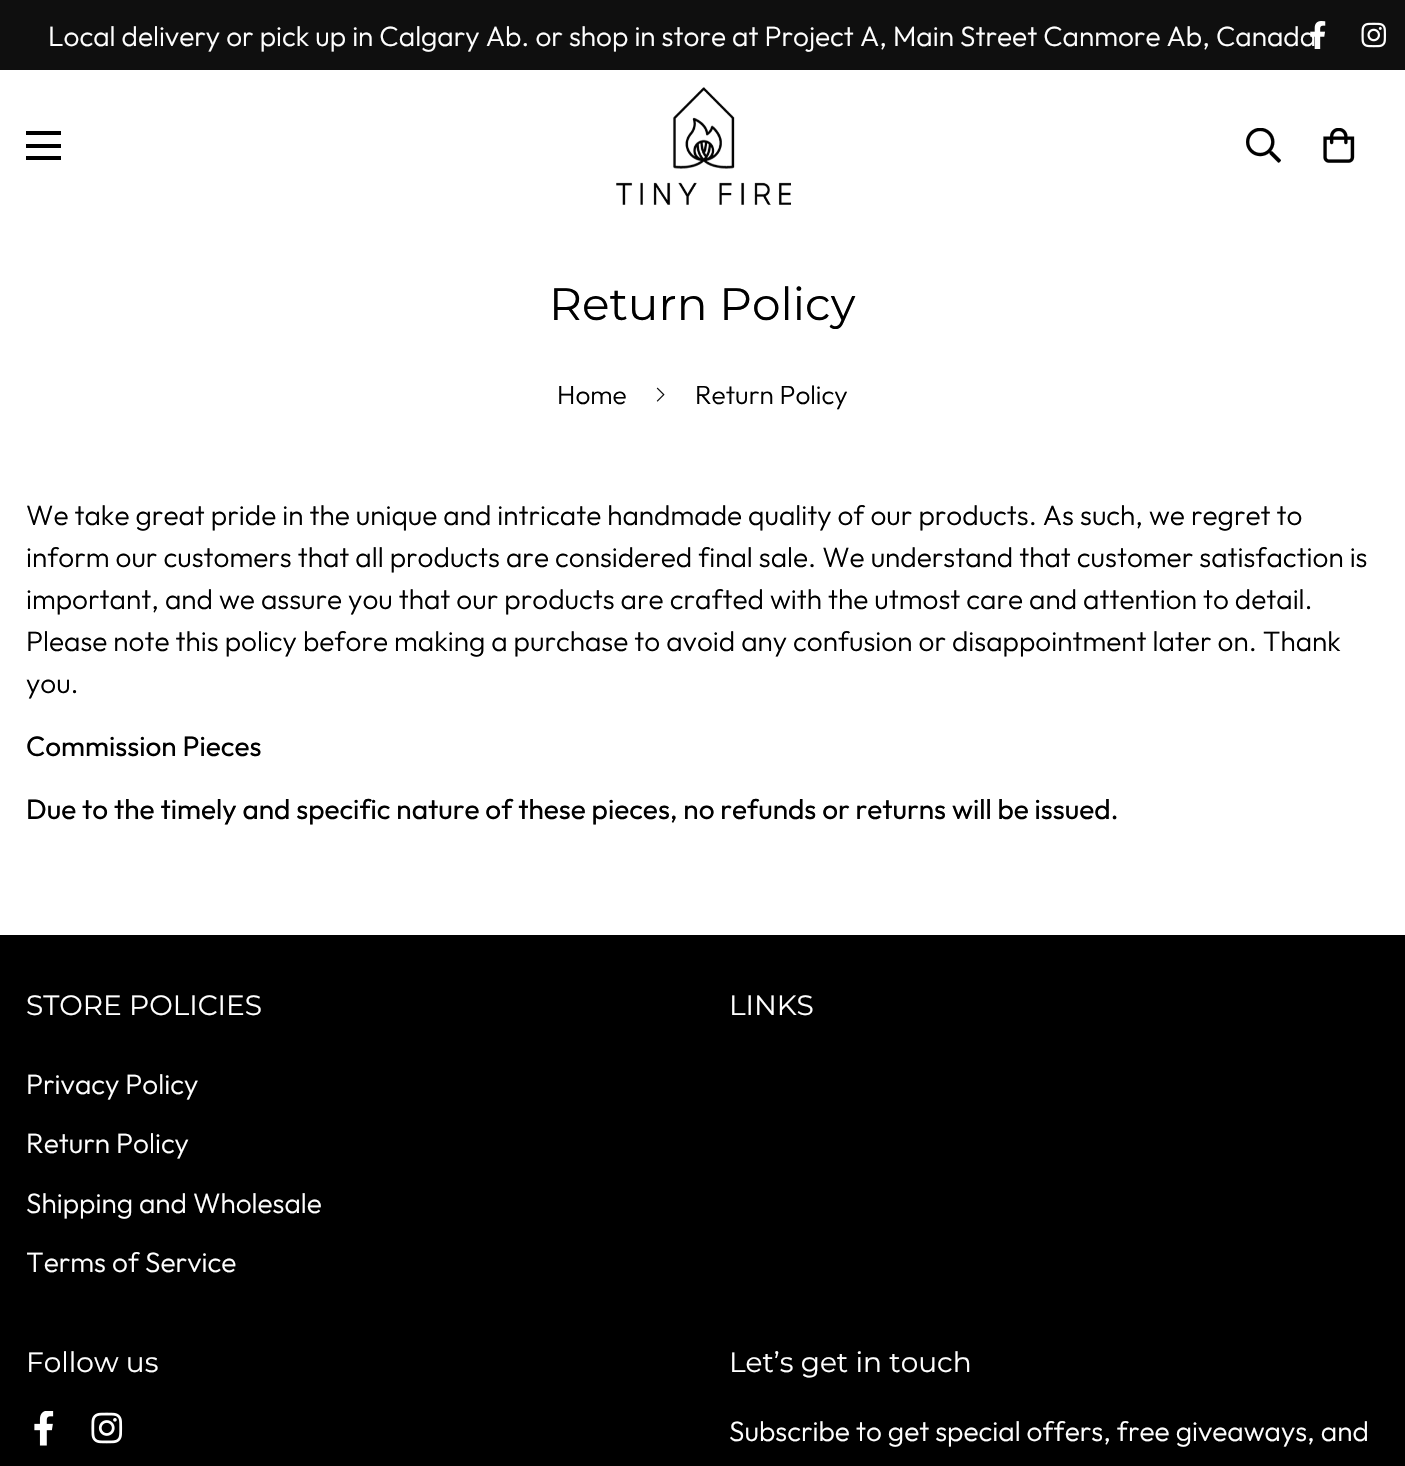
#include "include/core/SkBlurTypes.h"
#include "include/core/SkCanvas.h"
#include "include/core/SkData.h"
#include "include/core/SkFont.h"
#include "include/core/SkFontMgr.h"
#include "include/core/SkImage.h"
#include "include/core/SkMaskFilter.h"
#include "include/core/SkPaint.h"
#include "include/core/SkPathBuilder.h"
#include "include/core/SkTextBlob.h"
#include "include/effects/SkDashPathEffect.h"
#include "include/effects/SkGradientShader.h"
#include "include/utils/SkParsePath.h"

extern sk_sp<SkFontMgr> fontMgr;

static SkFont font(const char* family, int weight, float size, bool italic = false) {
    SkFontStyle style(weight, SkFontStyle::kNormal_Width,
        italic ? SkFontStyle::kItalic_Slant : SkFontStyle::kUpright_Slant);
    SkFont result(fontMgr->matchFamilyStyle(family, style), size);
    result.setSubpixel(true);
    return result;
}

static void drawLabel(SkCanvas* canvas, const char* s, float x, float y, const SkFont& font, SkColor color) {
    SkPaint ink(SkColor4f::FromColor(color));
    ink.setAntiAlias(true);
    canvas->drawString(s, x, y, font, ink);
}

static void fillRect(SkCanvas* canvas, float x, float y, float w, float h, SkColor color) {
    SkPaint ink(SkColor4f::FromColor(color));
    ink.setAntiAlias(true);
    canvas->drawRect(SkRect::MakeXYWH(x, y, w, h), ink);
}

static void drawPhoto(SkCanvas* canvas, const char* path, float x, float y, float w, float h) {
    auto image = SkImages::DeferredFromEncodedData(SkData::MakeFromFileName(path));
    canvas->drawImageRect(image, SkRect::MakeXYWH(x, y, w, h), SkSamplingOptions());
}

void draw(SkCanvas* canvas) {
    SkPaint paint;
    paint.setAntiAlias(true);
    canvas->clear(0xFFFFFFFF);
    fillRect(canvas, 0, 0, 1405, 70, 0xFF0F0F0F);
    SkFont font1 = font("Outfit", 300, 28);
    drawLabel(canvas, "Local delivery or pick up in Calgary Ab. or shop in store at Project A, Main Street Canmore Ab, Canada", 48, 46, font1, 0xFFFFFFFF);
    drawPhoto(canvas, "assets/img1.png", 1310, 21, 16, 28);
    drawPhoto(canvas, "assets/img2.png", 1361, 22, 25, 26);
    fillRect(canvas, 26, 144, 35, 4, 0xFF000000);
    fillRect(canvas, 26, 131, 35, 4, 0xFF000000);
    fillRect(canvas, 26, 156, 35, 4, 0xFF000000);
    drawPhoto(canvas, "assets/img3.png", 616, 87, 175, 118);
    drawPhoto(canvas, "assets/img4.png", 1246, 128, 35, 35);
    drawPhoto(canvas, "assets/img5.png", 1323, 128, 32, 35);
    SkFont font2 = font("Montserrat", 400, 45.5f);
    drawLabel(canvas, "Return Policy", 549, 320, font2, 0xFF000000);
    SkFont font3 = font("Outfit", 300, 26.25f);
    drawLabel(canvas, "Home", 557, 404, font3, 0xFF000000);
    drawPhoto(canvas, "assets/img6.png", 656, 387, 9, 15);
    drawLabel(canvas, "Return Policy", 695, 404, font3, 0xFF000000);
    drawLabel(canvas, "We take great pride in the unique and intricate handmade quality of our products. As such, we regret to", 26, 525, font1, 0xFF000000);
    drawLabel(canvas, "inform our customers that all products are considered final sale. We understand that customer satisfaction is", 26, 567, font1, 0xFF000000);
    drawLabel(canvas, "important, and we assure you that our products are crafted with the utmost care and attention to detail.", 26, 609, font1, 0xFF000000);
    drawLabel(canvas, "Please note this policy before making a purchase to avoid any confusion or disappointment later on. Thank", 26, 651, font1, 0xFF000000);
    drawLabel(canvas, "you.", 26, 693, font1, 0xFF000000);
    SkFont font4 = font("Outfit", 400, 28);
    drawLabel(canvas, "Commission Pieces", 26, 756, font4, 0xFF000000);
    drawLabel(canvas, "Due to the timely and specific nature of these pieces, no refunds or returns will be issued.", 26, 819, font4, 0xFF000000);
    fillRect(canvas, 0, 935, 1405, 531, 0xFF000000);
    SkFont font5 = font("Montserrat", 400, 28);
    drawLabel(canvas, "STORE POLICIES", 26, 1015, font5, 0xFFFFFFFF);
    drawLabel(canvas, "Privacy Policy", 26, 1094, font1, 0xFFFFFFFF);
    drawLabel(canvas, "Return Policy", 26, 1153, font1, 0xFFFFFFFF);
    drawLabel(canvas, "Shipping and Wholesale", 26, 1213, font1, 0xFFFFFFFF);
    drawLabel(canvas, "Terms of Service", 26, 1272, font1, 0xFFFFFFFF);
    drawLabel(canvas, "LINKS", 729, 1015, font5, 0xFFFFFFFF);
    drawLabel(canvas, "Follow us", 26, 1372, font5, 0xFFFFFFFF);
    drawPhoto(canvas, "assets/img7.png", 34, 1411, 20, 35);
    drawPhoto(canvas, "assets/img8.png", 91, 1412, 32, 32);
    drawLabel(canvas, "Let’s get in touch", 729, 1372, font5, 0xFFFFFFFF);
    drawLabel(canvas, "Subscribe to get special offers, free giveaways, and", 729, 1441, font1, 0xFFFFFFFF);
}
